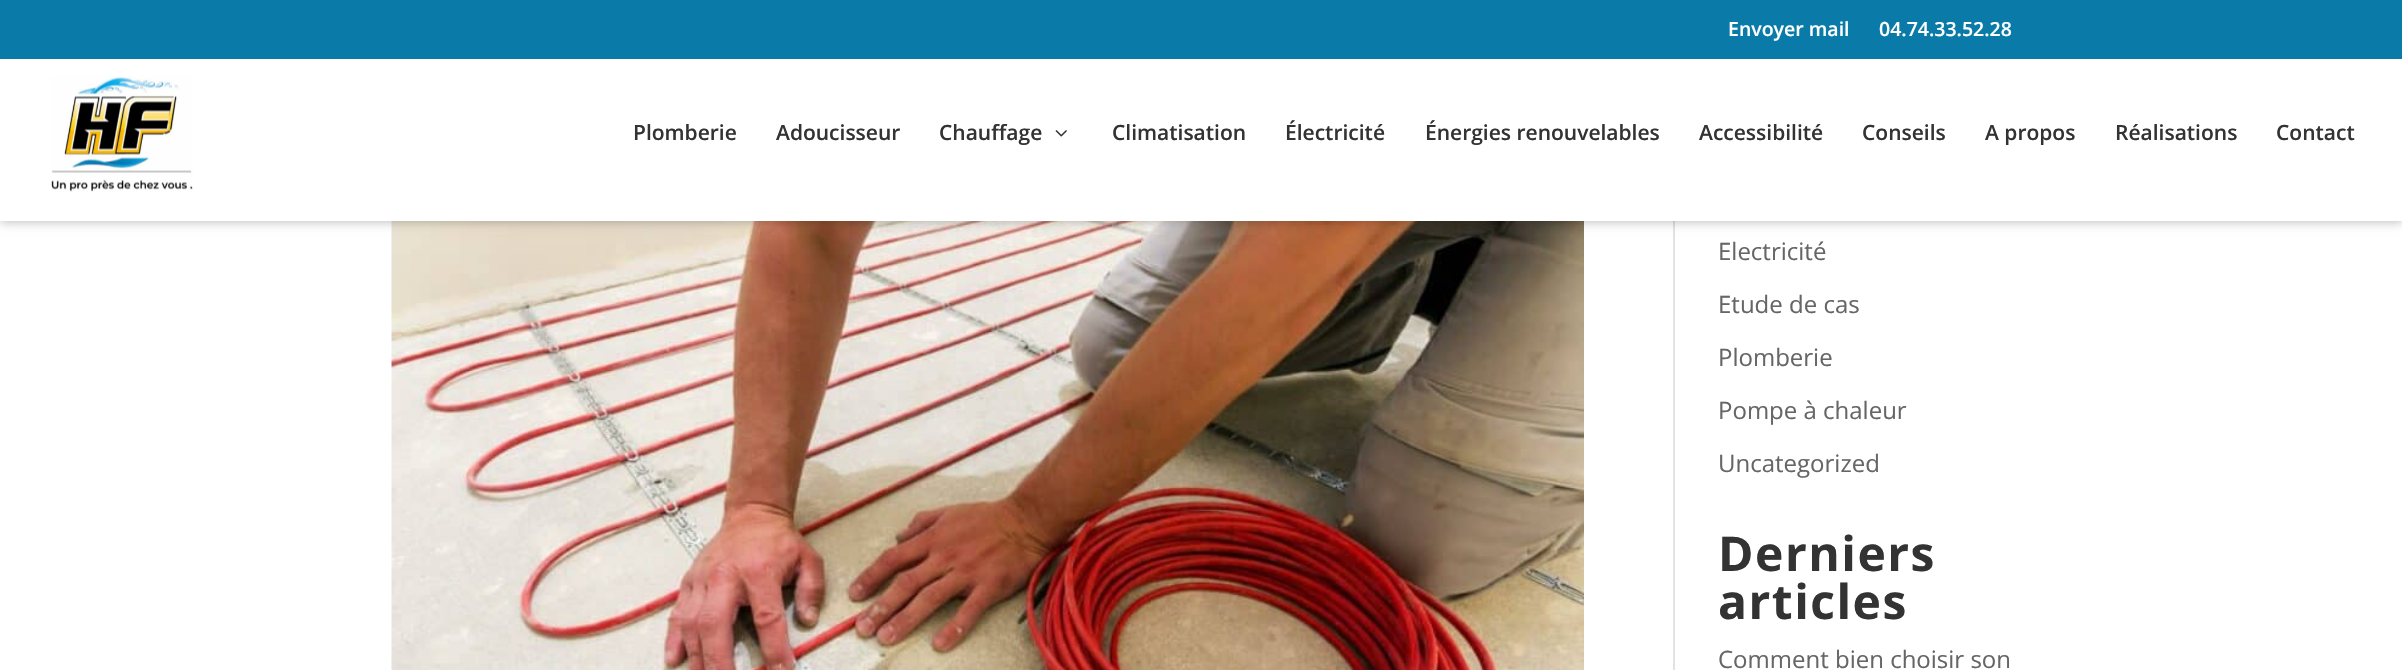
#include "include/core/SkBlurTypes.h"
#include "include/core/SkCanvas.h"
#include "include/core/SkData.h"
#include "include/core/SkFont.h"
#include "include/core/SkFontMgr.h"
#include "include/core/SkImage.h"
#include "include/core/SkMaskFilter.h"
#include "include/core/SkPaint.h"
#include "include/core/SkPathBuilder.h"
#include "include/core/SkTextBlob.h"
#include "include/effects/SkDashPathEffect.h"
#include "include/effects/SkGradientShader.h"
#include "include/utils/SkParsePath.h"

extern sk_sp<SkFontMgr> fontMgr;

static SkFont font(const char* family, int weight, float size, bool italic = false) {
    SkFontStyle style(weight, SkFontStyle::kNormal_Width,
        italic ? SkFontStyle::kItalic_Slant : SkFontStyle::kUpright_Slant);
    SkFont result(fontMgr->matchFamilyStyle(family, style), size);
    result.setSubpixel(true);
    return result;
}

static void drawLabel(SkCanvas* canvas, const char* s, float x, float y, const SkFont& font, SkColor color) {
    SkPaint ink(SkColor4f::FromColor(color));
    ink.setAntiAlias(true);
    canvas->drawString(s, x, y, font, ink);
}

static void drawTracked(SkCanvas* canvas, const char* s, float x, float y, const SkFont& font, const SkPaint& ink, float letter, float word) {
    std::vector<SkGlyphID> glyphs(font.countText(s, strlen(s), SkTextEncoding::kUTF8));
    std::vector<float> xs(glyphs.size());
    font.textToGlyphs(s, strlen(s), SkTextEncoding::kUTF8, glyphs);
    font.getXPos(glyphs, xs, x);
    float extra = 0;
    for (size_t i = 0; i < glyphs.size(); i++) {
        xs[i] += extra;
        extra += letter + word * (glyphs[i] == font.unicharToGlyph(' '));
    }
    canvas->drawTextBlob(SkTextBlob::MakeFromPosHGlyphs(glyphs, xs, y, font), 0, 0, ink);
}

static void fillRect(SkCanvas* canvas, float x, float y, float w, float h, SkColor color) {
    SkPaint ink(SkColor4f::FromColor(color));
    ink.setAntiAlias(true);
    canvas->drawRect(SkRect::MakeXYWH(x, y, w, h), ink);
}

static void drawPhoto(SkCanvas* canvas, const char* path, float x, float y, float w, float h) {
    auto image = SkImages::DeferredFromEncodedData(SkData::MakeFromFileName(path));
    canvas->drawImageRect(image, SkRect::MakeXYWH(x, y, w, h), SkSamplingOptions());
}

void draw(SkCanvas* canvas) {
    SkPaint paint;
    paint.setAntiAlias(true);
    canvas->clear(0xFFFFFFFF);
    fillRect(canvas, 1673, 221, 2, 449, 0xFFE2E2E2);
    drawPhoto(canvas, "assets/img3.png", 391, 221, 1193, 449);
    paint.setColor(0x42000000);
    paint.setMaskFilter(SkMaskFilter::MakeBlur(kNormal_SkBlurStyle, 5));
    canvas->drawRect(SkRect::MakeXYWH(0, 47, 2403, 175), paint);
    paint.setMaskFilter(nullptr);
    fillRect(canvas, 0, 0, 2402, 59, 0xFF0A7BA8);
    SkFont font1 = font("Open Sans", 600, 19.5f);
    drawLabel(canvas, "Envoyer mail", 1728, 36, font1, 0xFFFFFFFF);
    drawLabel(canvas, "04.74.33.52.28", 1879, 36, font1, 0xFFFFFFFF);
    fillRect(canvas, 0, 59, 2402, 162, 0xFFFFFFFF);
    drawPhoto(canvas, "assets/img1.png", 51, 76, 142, 116);
    SkFont font2 = font("Open Sans", 600, 21);
    drawLabel(canvas, "Plomberie", 633, 140, font2, 0xFF333333);
    drawLabel(canvas, "Adoucisseur", 776, 140, font2, 0xFF333333);
    drawLabel(canvas, "Chauffage", 939, 140, font2, 0xFF333333);
    drawPhoto(canvas, "assets/img2.png", 1055, 130, 12, 7);
    drawLabel(canvas, "Climatisation", 1112, 140, font2, 0xFF333333);
    drawLabel(canvas, "Électricité", 1285, 140, font2, 0xFF333333);
    drawLabel(canvas, "Énergies renouvelables", 1425, 140, font2, 0xFF333333);
    drawLabel(canvas, "Accessibilité", 1699, 140, font2, 0xFF333333);
    drawLabel(canvas, "Conseils", 1862, 140, font2, 0xFF333333);
    drawLabel(canvas, "A propos", 1985, 140, font2, 0xFF333333);
    drawLabel(canvas, "Réalisations", 2115, 140, font2, 0xFF333333);
    drawLabel(canvas, "Contact", 2276, 140, font2, 0xFF333333);
    SkFont font3 = font("Open Sans", 400, 24);
    drawLabel(canvas, "Electricité", 1718, 260, font3, 0xFF666666);
    drawLabel(canvas, "Etude de cas", 1718, 313, font3, 0xFF666666);
    drawLabel(canvas, "Plomberie", 1718, 366, font3, 0xFF666666);
    drawLabel(canvas, "Pompe à chaleur", 1718, 419, font3, 0xFF666666);
    drawLabel(canvas, "Uncategorized", 1718, 472, font3, 0xFF666666);
    SkFont font4 = font("Open Sans", 700, 48);
    paint.setColor(0xFF333333);
    drawTracked(canvas, "Derniers", 1718, 571, font4, paint, 1.5f, 0);
    drawTracked(canvas, "articles", 1718, 619, font4, paint, 1.5f, 0);
    drawLabel(canvas, "Comment bien choisir son", 1718, 668, font3, 0xFF666666);
}
